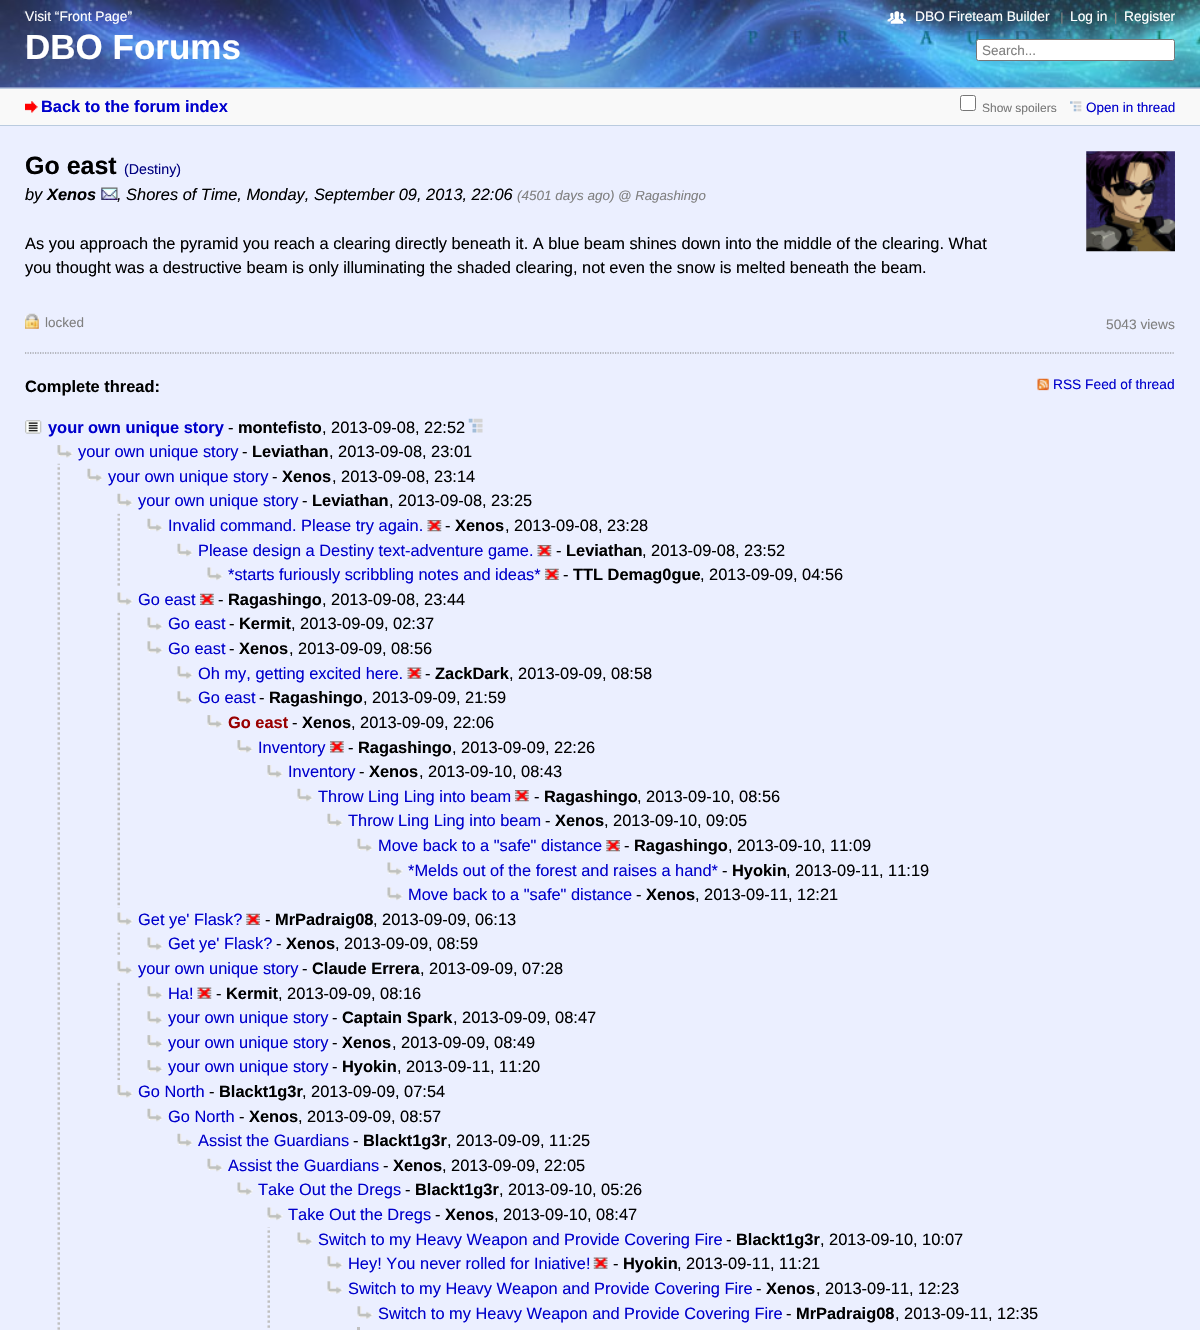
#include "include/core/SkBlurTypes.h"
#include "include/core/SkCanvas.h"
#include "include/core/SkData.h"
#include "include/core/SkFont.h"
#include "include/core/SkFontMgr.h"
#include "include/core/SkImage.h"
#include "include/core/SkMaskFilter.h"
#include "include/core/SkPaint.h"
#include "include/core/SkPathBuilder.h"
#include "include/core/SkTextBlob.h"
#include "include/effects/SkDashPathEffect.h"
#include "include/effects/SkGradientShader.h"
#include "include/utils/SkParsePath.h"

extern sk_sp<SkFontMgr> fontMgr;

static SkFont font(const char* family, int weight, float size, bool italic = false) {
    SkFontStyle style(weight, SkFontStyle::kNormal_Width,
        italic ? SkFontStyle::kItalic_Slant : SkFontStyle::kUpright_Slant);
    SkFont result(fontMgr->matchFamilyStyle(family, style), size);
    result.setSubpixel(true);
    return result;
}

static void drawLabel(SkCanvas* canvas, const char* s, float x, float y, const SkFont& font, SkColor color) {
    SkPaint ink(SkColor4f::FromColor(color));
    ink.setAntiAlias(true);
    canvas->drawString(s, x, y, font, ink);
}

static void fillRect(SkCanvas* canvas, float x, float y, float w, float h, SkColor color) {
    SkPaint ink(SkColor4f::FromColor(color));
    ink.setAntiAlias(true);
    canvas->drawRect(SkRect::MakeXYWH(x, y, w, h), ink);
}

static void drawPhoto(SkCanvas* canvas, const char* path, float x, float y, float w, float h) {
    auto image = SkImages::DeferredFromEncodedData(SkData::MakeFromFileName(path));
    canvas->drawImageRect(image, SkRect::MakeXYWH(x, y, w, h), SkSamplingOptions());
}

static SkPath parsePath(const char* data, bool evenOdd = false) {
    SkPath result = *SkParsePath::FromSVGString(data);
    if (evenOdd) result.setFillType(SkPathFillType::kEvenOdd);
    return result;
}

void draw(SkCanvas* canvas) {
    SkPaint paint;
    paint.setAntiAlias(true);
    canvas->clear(0xFFEBEFFF);
    fillRect(canvas, 0, 87, 1200, 1, 0xFFCFD5ED);
    drawPhoto(canvas, "assets/img1.png", 0, 0, 1200, 88);
    SkFont font1 = font("Liberation Sans", 400, 13.75f);
    drawLabel(canvas, "Visit “Front Page”", 25, 21, font1, 0xFFFFFFFF);
    SkFont font2 = font("Liberation Sans", 700, 35);
    drawLabel(canvas, "DBO Forums", 25, 59, font2, 0xFFFFFFFF);
    drawPhoto(canvas, "assets/img2.png", 887, 11, 20, 13);
    drawLabel(canvas, "DBO Fireteam Builder", 915, 21, font1, 0xFFFFFFFF);
    drawPhoto(canvas, "assets/img3.png", 1061, 12, 2, 12);
    drawLabel(canvas, "Log in", 1070, 21, font1, 0xFFFFFFFF);
    drawPhoto(canvas, "assets/img4.png", 1115, 12, 2, 12);
    drawLabel(canvas, "Register", 1124, 21, font1, 0xFFFFFFFF);
    paint.setColor(0xFFFFFFFF);
    canvas->drawRoundRect(SkRect::MakeXYWH(976.5f, 39.5f, 198, 21), 2, 2, paint);
    paint.setStroke(true);
    paint.setStrokeWidth(1);
    paint.setColor(0xFF767676);
    canvas->drawRoundRect(SkRect::MakeXYWH(976.5f, 39.5f, 198, 21), 2, 2, paint);
    SkFont font3 = font("Liberation Sans", 400, 13.5f);
    drawLabel(canvas, "Search...", 982, 55, font3, 0xFF808080);
    fillRect(canvas, 0, 89, 1200, 36, 0xFFF9F9F9);
    fillRect(canvas, 0, 88, 1200, 1, 0xFFBACBDF);
    fillRect(canvas, 0, 125, 1200, 1, 0xFFBACBDF);
    drawPhoto(canvas, "assets/img5.png", 25, 101, 13, 12);
    SkFont font4 = font("Liberation Sans", 700, 16.4f);
    drawLabel(canvas, "Back to the forum index", 41, 112, font4, 0xFF0000CC);
    paint.setStroke(false);
    paint.setColor(0xFFFFFFFF);
    canvas->drawRoundRect(SkRect::MakeXYWH(960.5f, 95.5f, 15, 15), 2, 2, paint);
    paint.setStroke(true);
    paint.setColor(0xFF767676);
    canvas->drawRoundRect(SkRect::MakeXYWH(960.5f, 95.5f, 15, 15), 2, 2, paint);
    SkFont font5 = font("Liberation Sans", 400, 12);
    drawLabel(canvas, "Show spoilers", 982, 112, font5, 0xFF787878);
    drawPhoto(canvas, "assets/img6.png", 1070, 101, 12, 11);
    drawLabel(canvas, "Open in thread", 1086, 112, font3, 0xFF0000CC);
    SkFont font6 = font("Liberation Sans", 700, 25);
    drawLabel(canvas, "Go east", 25, 174, font6, 0xFF000000);
    SkFont font7 = font("Liberation Sans", 400, 14.25f);
    drawLabel(canvas, "(Destiny)", 124, 174, font7, 0xFF000080);
    drawPhoto(canvas, "assets/img7.png", 1086, 151, 89, 101);
    SkFont font8 = font("Liberation Sans", 400, 16.4f, true);
    drawLabel(canvas, "by", 25, 200, font8, 0xFF000000);
    SkFont font9 = font("Liberation Sans", 700, 16.4f, true);
    drawLabel(canvas, "Xenos", 47, 200, font9, 0xFF000000);
    drawPhoto(canvas, "assets/img8.png", 101, 187, 17, 13);
    drawLabel(canvas, ", Shores of Time, Monday, September 09, 2013, 22:06", 117, 200, font8, 0xFF000000);
    SkFont font10 = font("Liberation Sans", 400, 13.5f, true);
    drawLabel(canvas, "(4501 days ago)", 517, 200, font10, 0xFF808080);
    SkFont font11 = font("Liberation Sans", 400, 13.25f, true);
    drawLabel(canvas, "@ Ragashingo", 618, 200, font11, 0xFF808080);
    SkFont font12 = font("Liberation Sans", 400, 16.4f);
    drawLabel(canvas, "As you approach the pyramid you reach a clearing directly beneath it. A blue beam shines down into the middle of the clearing. What", 25, 249, font12, 0xFF000000);
    drawLabel(canvas, "you thought was a destructive beam is only illuminating the shaded clearing, not even the snow is melted beneath the beam.", 25, 273, font12, 0xFF000000);
    drawPhoto(canvas, "assets/img9.png", 25, 313, 14, 16);
    drawLabel(canvas, "locked", 45, 327, font3, 0xFF808080);
    drawLabel(canvas, "5043 views", 1106, 329, font1, 0xFF808080);
    paint.setStrokeWidth(1.2f);
    paint.setColor(0xFF808080);
    paint.setPathEffect(SkDashPathEffect::Make({{1.25f, 1.25f}}, 0));
    canvas->drawPath(parsePath("M25 353H1175"), paint);
    paint.setPathEffect(nullptr);
    drawLabel(canvas, "Complete thread:", 25, 392, font4, 0xFF000000);
    drawPhoto(canvas, "assets/img10.png", 1037, 378, 12, 13);
    drawLabel(canvas, "RSS Feed of thread", 1053, 389, font1, 0xFF0000CC);
    drawPhoto(canvas, "assets/img11.png", 25, 420, 17, 14);
    drawLabel(canvas, "your own unique story", 48, 433, font4, 0xFF0000CC);
    drawLabel(canvas, "-", 228, 433, font12, 0xFF000000);
    drawLabel(canvas, "montefisto", 238, 433, font4, 0xFF000000);
    drawLabel(canvas, ", 2013-09-08, 22:52", 322, 433, font12, 0xFF000000);
    drawPhoto(canvas, "assets/img12.png", 468, 418, 15, 15);
    drawPhoto(canvas, "assets/img13.png", 57, 445, 16, 13);
    drawLabel(canvas, "your own unique story", 78, 457, font12, 0xFF0000CC);
    drawLabel(canvas, "-", 242, 457, font12, 0xFF000000);
    drawLabel(canvas, "Leviathan", 252, 457, font4, 0xFF000000);
    drawLabel(canvas, ", 2013-09-08, 23:01", 329, 457, font12, 0xFF000000);
    drawPhoto(canvas, "assets/img14.png", 57, 463, 3, 867);
    drawPhoto(canvas, "assets/img15.png", 87, 468, 16, 14);
    drawLabel(canvas, "your own unique story", 108, 482, font12, 0xFF0000CC);
    drawLabel(canvas, "-", 272, 482, font12, 0xFF000000);
    drawLabel(canvas, "Xenos", 282, 482, font4, 0xFF000000);
    drawLabel(canvas, ", 2013-09-08, 23:14", 332, 482, font12, 0xFF000000);
    drawPhoto(canvas, "assets/img15.png", 117, 493, 16, 14);
    drawLabel(canvas, "your own unique story", 138, 506, font12, 0xFF0000CC);
    drawLabel(canvas, "-", 302, 506, font12, 0xFF000000);
    drawLabel(canvas, "Leviathan", 312, 506, font4, 0xFF000000);
    drawLabel(canvas, ", 2013-09-08, 23:25", 389, 506, font12, 0xFF000000);
    drawPhoto(canvas, "assets/img16.png", 117, 513, 3, 73);
    drawPhoto(canvas, "assets/img15.png", 147, 518, 16, 14);
    drawLabel(canvas, "Invalid command. Please try again.", 168, 531, font12, 0xFF0000CC);
    drawPhoto(canvas, "assets/img17.png", 427, 520, 15, 12);
    drawLabel(canvas, "-", 445, 531, font12, 0xFF000000);
    drawLabel(canvas, "Xenos", 455, 531, font4, 0xFF000000);
    drawLabel(canvas, ", 2013-09-08, 23:28", 505, 531, font12, 0xFF000000);
    drawPhoto(canvas, "assets/img15.png", 177, 543, 16, 14);
    drawLabel(canvas, "Please design a Destiny text-adventure game.", 198, 556, font12, 0xFF0000CC);
    drawPhoto(canvas, "assets/img18.png", 537, 545, 15, 12);
    drawLabel(canvas, "-", 556, 556, font12, 0xFF000000);
    drawLabel(canvas, "Leviathan", 566, 556, font4, 0xFF000000);
    drawLabel(canvas, ", 2013-09-08, 23:52", 642, 556, font12, 0xFF000000);
    drawPhoto(canvas, "assets/img19.png", 207, 567, 16, 14);
    drawLabel(canvas, "*starts furiously scribbling notes and ideas*", 228, 580, font12, 0xFF0000CC);
    drawPhoto(canvas, "assets/img20.png", 545, 568, 14, 12);
    drawLabel(canvas, "-", 563, 580, font12, 0xFF000000);
    drawLabel(canvas, "TTL Demag0gue", 573, 580, font4, 0xFF000000);
    drawLabel(canvas, ", 2013-09-09, 04:56", 700, 580, font12, 0xFF000000);
    drawPhoto(canvas, "assets/img19.png", 117, 592, 16, 14);
    drawLabel(canvas, "Go east", 138, 605, font12, 0xFF0000CC);
    drawPhoto(canvas, "assets/img21.png", 200, 593, 14, 12);
    drawLabel(canvas, "-", 218, 605, font12, 0xFF000000);
    drawLabel(canvas, "Ragashingo", 228, 605, font4, 0xFF000000);
    drawLabel(canvas, ", 2013-09-08, 23:44", 322, 605, font12, 0xFF000000);
    drawPhoto(canvas, "assets/img22.png", 117, 612, 3, 296);
    drawPhoto(canvas, "assets/img19.png", 147, 617, 16, 14);
    drawLabel(canvas, "Go east", 168, 629, font12, 0xFF0000CC);
    drawLabel(canvas, "-", 229, 629, font12, 0xFF000000);
    drawLabel(canvas, "Kermit", 239, 629, font4, 0xFF000000);
    drawLabel(canvas, ", 2013-09-09, 02:37", 291, 629, font12, 0xFF000000);
    drawPhoto(canvas, "assets/img23.png", 147, 641, 16, 13);
    drawLabel(canvas, "Go east", 168, 654, font12, 0xFF0000CC);
    drawLabel(canvas, "-", 229, 654, font12, 0xFF000000);
    drawLabel(canvas, "Xenos", 239, 654, font4, 0xFF000000);
    drawLabel(canvas, ", 2013-09-09, 08:56", 289, 654, font12, 0xFF000000);
    drawPhoto(canvas, "assets/img23.png", 177, 666, 16, 13);
    drawLabel(canvas, "Oh my, getting excited here.", 198, 679, font12, 0xFF0000CC);
    drawPhoto(canvas, "assets/img24.png", 407, 667, 15, 12);
    drawLabel(canvas, "-", 425, 679, font12, 0xFF000000);
    drawLabel(canvas, "ZackDark", 435, 679, font4, 0xFF000000);
    drawLabel(canvas, ", 2013-09-09, 08:58", 509, 679, font12, 0xFF000000);
    drawPhoto(canvas, "assets/img23.png", 177, 691, 16, 13);
    drawLabel(canvas, "Go east", 198, 703, font12, 0xFF0000CC);
    drawLabel(canvas, "-", 259, 703, font12, 0xFF000000);
    drawLabel(canvas, "Ragashingo", 269, 703, font4, 0xFF000000);
    drawLabel(canvas, ", 2013-09-09, 21:59", 363, 703, font12, 0xFF000000);
    drawPhoto(canvas, "assets/img25.png", 207, 715, 16, 13);
    drawLabel(canvas, "Go east", 228, 728, font4, 0xFF990000);
    drawLabel(canvas, "-", 292, 728, font12, 0xFF000000);
    drawLabel(canvas, "Xenos", 302, 728, font4, 0xFF000000);
    drawLabel(canvas, ", 2013-09-09, 22:06", 351, 728, font12, 0xFF000000);
    drawPhoto(canvas, "assets/img25.png", 237, 740, 16, 13);
    drawLabel(canvas, "Inventory", 258, 753, font12, 0xFF0000CC);
    drawPhoto(canvas, "assets/img26.png", 330, 741, 14, 12);
    drawLabel(canvas, "-", 348, 753, font12, 0xFF000000);
    drawLabel(canvas, "Ragashingo", 358, 753, font4, 0xFF000000);
    drawLabel(canvas, ", 2013-09-09, 22:26", 452, 753, font12, 0xFF000000);
    drawPhoto(canvas, "assets/img25.png", 267, 765, 16, 13);
    drawLabel(canvas, "Inventory", 288, 777, font12, 0xFF0000CC);
    drawLabel(canvas, "-", 359, 777, font12, 0xFF000000);
    drawLabel(canvas, "Xenos", 369, 777, font4, 0xFF000000);
    drawLabel(canvas, ", 2013-09-10, 08:43", 419, 777, font12, 0xFF000000);
    drawPhoto(canvas, "assets/img15.png", 297, 788, 16, 14);
    drawLabel(canvas, "Throw Ling Ling into beam", 318, 802, font12, 0xFF0000CC);
    drawPhoto(canvas, "assets/img27.png", 515, 790, 14, 12);
    drawLabel(canvas, "-", 534, 802, font12, 0xFF000000);
    drawLabel(canvas, "Ragashingo", 544, 802, font4, 0xFF000000);
    drawLabel(canvas, ", 2013-09-10, 08:56", 637, 802, font12, 0xFF000000);
    drawPhoto(canvas, "assets/img15.png", 327, 813, 16, 14);
    drawLabel(canvas, "Throw Ling Ling into beam", 348, 826, font12, 0xFF0000CC);
    drawLabel(canvas, "-", 545, 826, font12, 0xFF000000);
    drawLabel(canvas, "Xenos", 555, 826, font4, 0xFF000000);
    drawLabel(canvas, ", 2013-09-10, 09:05", 604, 826, font12, 0xFF000000);
    drawPhoto(canvas, "assets/img28.png", 357, 838, 16, 14);
    drawLabel(canvas, "Move back to a \"safe\" distance", 378, 851, font12, 0xFF0000CC);
    drawPhoto(canvas, "assets/img29.png", 606, 840, 14, 12);
    drawLabel(canvas, "-", 624, 851, font12, 0xFF000000);
    drawLabel(canvas, "Ragashingo", 634, 851, font4, 0xFF000000);
    drawLabel(canvas, ", 2013-09-10, 11:09", 728, 851, font12, 0xFF000000);
    drawPhoto(canvas, "assets/img30.png", 387, 862, 16, 14);
    drawLabel(canvas, "*Melds out of the forest and raises a hand*", 408, 876, font12, 0xFF0000CC);
    drawLabel(canvas, "-", 722, 876, font12, 0xFF000000);
    drawLabel(canvas, "Hyokin", 732, 876, font4, 0xFF000000);
    drawLabel(canvas, ", 2013-09-11, 11:19", 786, 876, font12, 0xFF000000);
    drawPhoto(canvas, "assets/img30.png", 387, 887, 16, 14);
    drawLabel(canvas, "Move back to a \"safe\" distance", 408, 900, font12, 0xFF0000CC);
    drawLabel(canvas, "-", 636, 900, font12, 0xFF000000);
    drawLabel(canvas, "Xenos", 646, 900, font4, 0xFF000000);
    drawLabel(canvas, ", 2013-09-11, 12:21", 695, 900, font12, 0xFF000000);
    drawPhoto(canvas, "assets/img19.png", 117, 912, 16, 14);
    drawLabel(canvas, "Get ye' Flask?", 138, 925, font12, 0xFF0000CC);
    drawPhoto(canvas, "assets/img31.png", 246, 913, 14, 12);
    drawLabel(canvas, "-", 265, 925, font12, 0xFF000000);
    drawLabel(canvas, "MrPadraig08", 275, 925, font4, 0xFF000000);
    drawLabel(canvas, ", 2013-09-09, 06:13", 373, 925, font12, 0xFF000000);
    drawPhoto(canvas, "assets/img32.png", 117, 932, 3, 23);
    drawPhoto(canvas, "assets/img19.png", 147, 937, 16, 14);
    drawLabel(canvas, "Get ye' Flask?", 168, 949, font12, 0xFF0000CC);
    drawLabel(canvas, "-", 276, 949, font12, 0xFF000000);
    drawLabel(canvas, "Xenos", 286, 949, font4, 0xFF000000);
    drawLabel(canvas, ", 2013-09-09, 08:59", 335, 949, font12, 0xFF000000);
    drawPhoto(canvas, "assets/img23.png", 117, 961, 16, 13);
    drawLabel(canvas, "your own unique story", 138, 974, font12, 0xFF0000CC);
    drawLabel(canvas, "-", 302, 974, font12, 0xFF000000);
    drawLabel(canvas, "Claude Errera", 312, 974, font4, 0xFF000000);
    drawLabel(canvas, ", 2013-09-09, 07:28", 420, 974, font12, 0xFF000000);
    drawPhoto(canvas, "assets/img33.png", 117, 982, 3, 98);
    drawPhoto(canvas, "assets/img23.png", 147, 986, 16, 13);
    drawLabel(canvas, "Ha!", 168, 999, font12, 0xFF0000CC);
    drawPhoto(canvas, "assets/img34.png", 197, 987, 15, 12);
    drawLabel(canvas, "-", 216, 999, font12, 0xFF000000);
    drawLabel(canvas, "Kermit", 226, 999, font4, 0xFF000000);
    drawLabel(canvas, ", 2013-09-09, 08:16", 278, 999, font12, 0xFF000000);
    drawPhoto(canvas, "assets/img23.png", 147, 1011, 16, 13);
    drawLabel(canvas, "your own unique story", 168, 1023, font12, 0xFF0000CC);
    drawLabel(canvas, "-", 332, 1023, font12, 0xFF000000);
    drawLabel(canvas, "Captain Spark", 342, 1023, font4, 0xFF000000);
    drawLabel(canvas, ", 2013-09-09, 08:47", 453, 1023, font12, 0xFF000000);
    drawPhoto(canvas, "assets/img25.png", 147, 1035, 16, 13);
    drawLabel(canvas, "your own unique story", 168, 1048, font12, 0xFF0000CC);
    drawLabel(canvas, "-", 332, 1048, font12, 0xFF000000);
    drawLabel(canvas, "Xenos", 342, 1048, font4, 0xFF000000);
    drawLabel(canvas, ", 2013-09-09, 08:49", 392, 1048, font12, 0xFF000000);
    drawPhoto(canvas, "assets/img25.png", 147, 1060, 16, 13);
    drawLabel(canvas, "your own unique story", 168, 1072, font12, 0xFF0000CC);
    drawLabel(canvas, "-", 332, 1072, font12, 0xFF000000);
    drawLabel(canvas, "Hyokin", 342, 1072, font4, 0xFF000000);
    drawLabel(canvas, ", 2013-09-11, 11:20", 397, 1072, font12, 0xFF000000);
    drawPhoto(canvas, "assets/img25.png", 117, 1085, 16, 13);
    drawLabel(canvas, "Go North", 138, 1097, font12, 0xFF0000CC);
    drawLabel(canvas, "-", 209, 1097, font12, 0xFF000000);
    drawLabel(canvas, "Blackt1g3r", 219, 1097, font4, 0xFF000000);
    drawLabel(canvas, ", 2013-09-09, 07:54", 302, 1097, font12, 0xFF000000);
    drawPhoto(canvas, "assets/img15.png", 147, 1108, 16, 14);
    drawLabel(canvas, "Go North", 168, 1122, font12, 0xFF0000CC);
    drawLabel(canvas, "-", 239, 1122, font12, 0xFF000000);
    drawLabel(canvas, "Xenos", 249, 1122, font4, 0xFF000000);
    drawLabel(canvas, ", 2013-09-09, 08:57", 298, 1122, font12, 0xFF000000);
    drawPhoto(canvas, "assets/img15.png", 177, 1133, 16, 14);
    drawLabel(canvas, "Assist the Guardians", 198, 1146, font12, 0xFF0000CC);
    drawLabel(canvas, "-", 353, 1146, font12, 0xFF000000);
    drawLabel(canvas, "Blackt1g3r", 363, 1146, font4, 0xFF000000);
    drawLabel(canvas, ", 2013-09-09, 11:25", 447, 1146, font12, 0xFF000000);
    drawPhoto(canvas, "assets/img15.png", 207, 1158, 16, 14);
    drawLabel(canvas, "Assist the Guardians", 228, 1171, font12, 0xFF0000CC);
    drawLabel(canvas, "-", 383, 1171, font12, 0xFF000000);
    drawLabel(canvas, "Xenos", 393, 1171, font4, 0xFF000000);
    drawLabel(canvas, ", 2013-09-09, 22:05", 442, 1171, font12, 0xFF000000);
    drawPhoto(canvas, "assets/img19.png", 237, 1182, 16, 14);
    drawLabel(canvas, "Take Out the Dregs", 258, 1195, font12, 0xFF0000CC);
    drawLabel(canvas, "-", 405, 1195, font12, 0xFF000000);
    drawLabel(canvas, "Blackt1g3r", 415, 1195, font4, 0xFF000000);
    drawLabel(canvas, ", 2013-09-10, 05:26", 499, 1195, font12, 0xFF000000);
    drawPhoto(canvas, "assets/img19.png", 267, 1207, 16, 14);
    drawLabel(canvas, "Take Out the Dregs", 288, 1220, font12, 0xFF0000CC);
    drawLabel(canvas, "-", 435, 1220, font12, 0xFF000000);
    drawLabel(canvas, "Xenos", 445, 1220, font4, 0xFF000000);
    drawLabel(canvas, ", 2013-09-10, 08:47", 494, 1220, font12, 0xFF000000);
    drawPhoto(canvas, "assets/img35.png", 267, 1227, 3, 101);
    drawPhoto(canvas, "assets/img19.png", 297, 1232, 16, 14);
    drawLabel(canvas, "Switch to my Heavy Weapon and Provide Covering Fire", 318, 1245, font12, 0xFF0000CC);
    drawLabel(canvas, "-", 726, 1245, font12, 0xFF000000);
    drawLabel(canvas, "Blackt1g3r", 736, 1245, font4, 0xFF000000);
    drawLabel(canvas, ", 2013-09-10, 10:07", 820, 1245, font12, 0xFF000000);
    drawPhoto(canvas, "assets/img23.png", 327, 1256, 16, 13);
    drawLabel(canvas, "Hey! You never rolled for Iniative!", 348, 1269, font12, 0xFF0000CC);
    drawPhoto(canvas, "assets/img36.png", 593, 1257, 15, 12);
    drawLabel(canvas, "-", 613, 1269, font12, 0xFF000000);
    drawLabel(canvas, "Hyokin", 623, 1269, font4, 0xFF000000);
    drawLabel(canvas, ", 2013-09-11, 11:21", 677, 1269, font12, 0xFF000000);
    drawPhoto(canvas, "assets/img23.png", 327, 1281, 16, 13);
    drawLabel(canvas, "Switch to my Heavy Weapon and Provide Covering Fire", 348, 1294, font12, 0xFF0000CC);
    drawLabel(canvas, "-", 756, 1294, font12, 0xFF000000);
    drawLabel(canvas, "Xenos", 766, 1294, font4, 0xFF000000);
    drawLabel(canvas, ", 2013-09-11, 12:23", 816, 1294, font12, 0xFF000000);
    drawPhoto(canvas, "assets/img37.png", 357, 1306, 16, 13);
    drawLabel(canvas, "Switch to my Heavy Weapon and Provide Covering Fire", 378, 1319, font12, 0xFF0000CC);
    drawLabel(canvas, "-", 786, 1319, font12, 0xFF000000);
    drawLabel(canvas, "MrPadraig08", 796, 1319, font4, 0xFF000000);
    drawLabel(canvas, ", 2013-09-11, 12:35", 895, 1319, font12, 0xFF000000);
    fillRect(canvas, 357, 1327, 3, 3, 0xFFC0C0C0);
}
